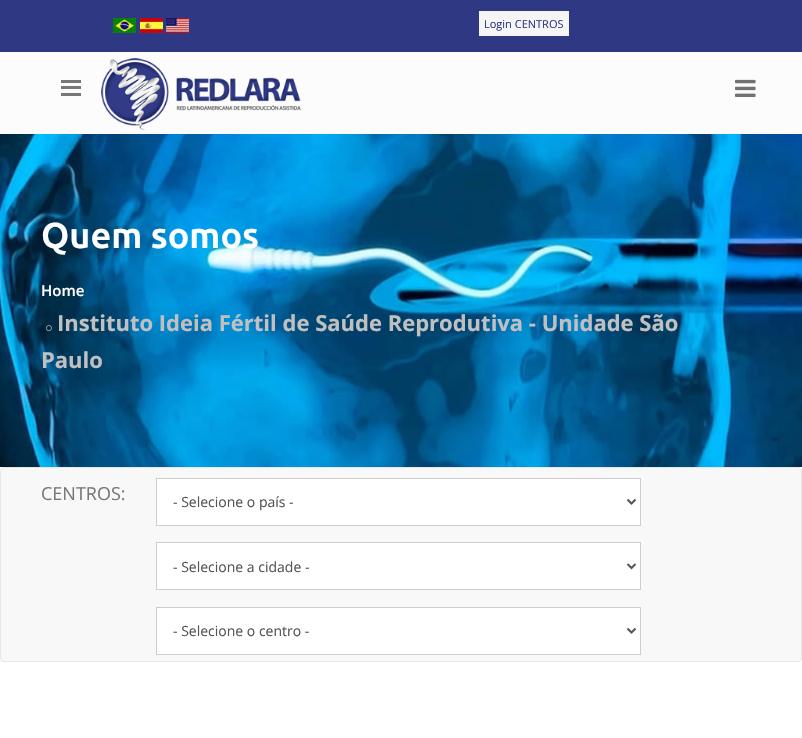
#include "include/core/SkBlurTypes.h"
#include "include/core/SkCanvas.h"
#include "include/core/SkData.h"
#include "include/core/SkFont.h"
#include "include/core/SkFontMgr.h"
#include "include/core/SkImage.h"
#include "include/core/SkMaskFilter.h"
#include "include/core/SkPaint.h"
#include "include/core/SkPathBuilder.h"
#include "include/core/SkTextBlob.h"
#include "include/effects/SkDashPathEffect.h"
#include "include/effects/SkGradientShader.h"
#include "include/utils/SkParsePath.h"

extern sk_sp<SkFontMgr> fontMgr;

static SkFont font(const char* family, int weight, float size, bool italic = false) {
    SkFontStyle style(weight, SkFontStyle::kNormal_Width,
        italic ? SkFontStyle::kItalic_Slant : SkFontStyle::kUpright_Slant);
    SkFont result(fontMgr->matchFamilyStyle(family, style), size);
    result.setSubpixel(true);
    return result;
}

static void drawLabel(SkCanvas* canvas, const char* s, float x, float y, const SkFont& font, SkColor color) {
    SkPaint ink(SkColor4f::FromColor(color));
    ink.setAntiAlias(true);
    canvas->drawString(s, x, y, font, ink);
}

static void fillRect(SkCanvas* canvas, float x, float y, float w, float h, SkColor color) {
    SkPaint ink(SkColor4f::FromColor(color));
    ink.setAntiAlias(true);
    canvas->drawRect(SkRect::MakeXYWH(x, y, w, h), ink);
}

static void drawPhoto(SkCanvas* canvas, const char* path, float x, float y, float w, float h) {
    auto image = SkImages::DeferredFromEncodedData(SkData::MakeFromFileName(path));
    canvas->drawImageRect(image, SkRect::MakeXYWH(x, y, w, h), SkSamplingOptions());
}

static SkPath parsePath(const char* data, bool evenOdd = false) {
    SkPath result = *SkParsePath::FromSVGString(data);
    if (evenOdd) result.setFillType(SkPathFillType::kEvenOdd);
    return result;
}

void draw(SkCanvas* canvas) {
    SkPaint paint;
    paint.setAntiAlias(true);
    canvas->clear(0xFFFFFFFF);
    fillRect(canvas, 0, 0, 802, 52, 0xFF2F3883);
    drawPhoto(canvas, "assets/img1.png", 113, 18, 23, 15);
    drawPhoto(canvas, "assets/img2.png", 140, 18, 23, 15);
    drawPhoto(canvas, "assets/img3.png", 166, 18, 23, 15);
    fillRect(canvas, 479, 11, 90, 25, 0xFFF5F5F5);
    SkFont font1 = font("Open Sans", 400, 11);
    drawLabel(canvas, "Login CENTROS", 484, 28, font1, 0xFF2F3883);
    fillRect(canvas, 0, 52, 802, 82, 0xFFFCFCFC);
    fillRect(canvas, 61, 80, 20, 3, 0xFF777777);
    fillRect(canvas, 61, 86, 20, 3, 0xFF777777);
    fillRect(canvas, 61, 93, 20, 3, 0xFF777777);
    drawPhoto(canvas, "assets/img4.png", 101, 58, 200, 72);
    drawPhoto(canvas, "assets/img5.png", 735, 79, 21, 18);
    drawPhoto(canvas, "assets/img6.png", 0, 134, 802, 333);
    SkFont font2 = font("Ubuntu", 700, 36);
    drawLabel(canvas, "Quem somos", 41, 248, font2, 0xFFFFFFFF);
    SkFont font3 = font("Open Sans", 600, 15);
    drawLabel(canvas, "Home", 41, 296, font3, 0xFFFFFFFF);
    drawPhoto(canvas, "assets/img7.png", 46, 325, 6, 6);
    SkFont font4 = font("Open Sans", 700, 22);
    drawLabel(canvas, "Instituto Ideia Fértil de Saúde Reprodutiva - Unidade São", 57, 331, font4, 0xFFC0C0C0);
    drawLabel(canvas, "Paulo", 41, 368, font4, 0xFFC0C0C0);
    paint.setColor(0xFFF8F8F8);
    canvas->drawRoundRect(SkRect::MakeXYWH(0.5f, 467.5f, 801, 194), 3.5f, 3.5f, paint);
    paint.setStroke(true);
    paint.setStrokeWidth(1);
    paint.setColor(0xFFE7E7E7);
    canvas->drawRoundRect(SkRect::MakeXYWH(0.5f, 467.5f, 801, 194), 3.5f, 3.5f, paint);
    SkFont font5 = font("Open Sans", 400, 18);
    drawLabel(canvas, "CENTROS:", 41, 500, font5, 0xFF777777);
    paint.setStroke(false);
    paint.setColor(0xFFFFFFFF);
    canvas->drawRect(SkRect::MakeXYWH(156.5f, 478.5f, 484, 47), paint);
    paint.setStroke(true);
    paint.setColor(0xFFCDCDCD);
    canvas->drawRect(SkRect::MakeXYWH(156.5f, 478.5f, 484, 47), paint);
    paint.setStrokeWidth(2);
    paint.setColor(0xFF555555);
    canvas->drawPath(parsePath("M627.5 499.5L631.5 503.5L635.5 499.5"), paint);
    SkFont font6 = font("Open Sans", 400, 14);
    drawLabel(canvas, "- Selecione o país -", 173, 507, font6, 0xFF555555);
    paint.setStroke(false);
    paint.setColor(0xFFFFFFFF);
    canvas->drawRect(SkRect::MakeXYWH(156.5f, 542.5f, 484, 47), paint);
    paint.setStroke(true);
    paint.setStrokeWidth(1);
    paint.setColor(0xFFCDCDCD);
    canvas->drawRect(SkRect::MakeXYWH(156.5f, 542.5f, 484, 47), paint);
    paint.setStrokeWidth(2);
    paint.setColor(0xFF555555);
    canvas->drawPath(parsePath("M627.5 564L631.5 568L635.5 564"), paint);
    drawLabel(canvas, "- Selecione a cidade -", 173, 572, font6, 0xFF555555);
    paint.setStroke(false);
    paint.setColor(0xFFFFFFFF);
    canvas->drawRect(SkRect::MakeXYWH(156.5f, 607.5f, 484, 47), paint);
    paint.setStroke(true);
    paint.setStrokeWidth(1);
    paint.setColor(0xFFCDCDCD);
    canvas->drawRect(SkRect::MakeXYWH(156.5f, 607.5f, 484, 47), paint);
    paint.setStrokeWidth(2);
    paint.setColor(0xFF555555);
    canvas->drawPath(parsePath("M627.5 628.5L631.5 632.5L635.5 628.5"), paint);
    drawLabel(canvas, "- Selecione o centro -", 173, 636, font6, 0xFF555555);
}
